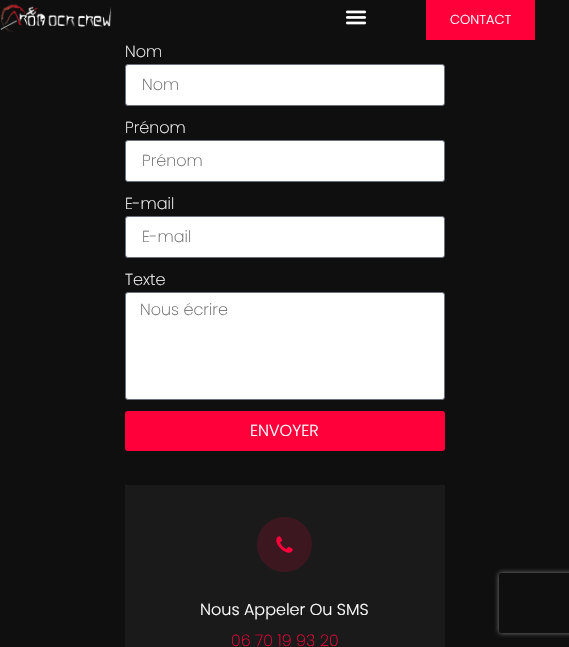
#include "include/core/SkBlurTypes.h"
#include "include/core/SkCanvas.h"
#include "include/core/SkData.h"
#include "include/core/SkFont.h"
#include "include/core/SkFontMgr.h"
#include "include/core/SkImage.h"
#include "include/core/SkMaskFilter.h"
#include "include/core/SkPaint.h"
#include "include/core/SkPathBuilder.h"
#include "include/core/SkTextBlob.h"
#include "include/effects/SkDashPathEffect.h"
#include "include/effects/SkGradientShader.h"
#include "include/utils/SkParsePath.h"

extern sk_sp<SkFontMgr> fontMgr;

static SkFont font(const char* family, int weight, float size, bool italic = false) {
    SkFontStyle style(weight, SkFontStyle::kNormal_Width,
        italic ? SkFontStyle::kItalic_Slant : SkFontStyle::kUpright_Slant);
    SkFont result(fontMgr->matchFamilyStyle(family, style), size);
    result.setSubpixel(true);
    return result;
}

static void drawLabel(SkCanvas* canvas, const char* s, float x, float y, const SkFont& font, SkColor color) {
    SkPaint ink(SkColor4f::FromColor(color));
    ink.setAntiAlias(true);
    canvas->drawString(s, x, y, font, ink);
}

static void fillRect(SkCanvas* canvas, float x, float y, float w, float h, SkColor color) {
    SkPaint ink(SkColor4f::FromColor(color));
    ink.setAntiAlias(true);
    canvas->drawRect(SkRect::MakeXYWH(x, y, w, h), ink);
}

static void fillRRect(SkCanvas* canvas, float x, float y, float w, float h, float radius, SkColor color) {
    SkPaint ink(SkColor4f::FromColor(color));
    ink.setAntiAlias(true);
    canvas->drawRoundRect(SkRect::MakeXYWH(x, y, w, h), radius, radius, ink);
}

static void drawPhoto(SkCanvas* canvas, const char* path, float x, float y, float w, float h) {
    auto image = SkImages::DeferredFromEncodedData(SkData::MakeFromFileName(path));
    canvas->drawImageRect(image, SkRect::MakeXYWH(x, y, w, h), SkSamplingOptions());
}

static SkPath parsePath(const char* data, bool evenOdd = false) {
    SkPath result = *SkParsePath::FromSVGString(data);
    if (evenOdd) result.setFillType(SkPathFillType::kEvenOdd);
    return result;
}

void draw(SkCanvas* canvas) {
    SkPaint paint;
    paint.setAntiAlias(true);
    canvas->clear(0xFF0F0F0F);
    drawPhoto(canvas, "assets/img1.png", 0, 4, 112, 29);
    drawPhoto(canvas, "assets/img2.png", 345, 10, 22, 15);
    fillRect(canvas, 426, 0, 109, 40, 0xFFFF003B);
    SkFont font1 = font("Poppins", 300, 13);
    drawLabel(canvas, "CONTACT", 450, 24, font1, 0xFFFFFFFF);
    SkFont font2 = font("Poppins", 200, 16);
    drawLabel(canvas, "Nom", 125, 57, font2, 0xFFFFFFFF);
    paint.setColor(0xFFFFFFFF);
    canvas->drawRoundRect(SkRect::MakeXYWH(125.5f, 64.5f, 319, 41), 2.5f, 2.5f, paint);
    paint.setStroke(true);
    paint.setStrokeWidth(1);
    paint.setColor(0xFF69727D);
    canvas->drawRoundRect(SkRect::MakeXYWH(125.5f, 64.5f, 319, 41), 2.5f, 2.5f, paint);
    drawLabel(canvas, "Nom", 142, 90, font2, 0xFF666666);
    drawLabel(canvas, "Prénom", 125, 133, font2, 0xFFFFFFFF);
    paint.setStroke(false);
    paint.setColor(0xFFFFFFFF);
    canvas->drawRoundRect(SkRect::MakeXYWH(125.5f, 140.5f, 319, 41), 2.5f, 2.5f, paint);
    paint.setStroke(true);
    paint.setColor(0xFF69727D);
    canvas->drawRoundRect(SkRect::MakeXYWH(125.5f, 140.5f, 319, 41), 2.5f, 2.5f, paint);
    drawLabel(canvas, "Prénom", 142, 166, font2, 0xFF666666);
    drawLabel(canvas, "E-mail", 125, 209, font2, 0xFFFFFFFF);
    paint.setStroke(false);
    paint.setColor(0xFFFFFFFF);
    canvas->drawRoundRect(SkRect::MakeXYWH(125.5f, 216.5f, 319, 41), 2.5f, 2.5f, paint);
    paint.setStroke(true);
    paint.setColor(0xFF69727D);
    canvas->drawRoundRect(SkRect::MakeXYWH(125.5f, 216.5f, 319, 41), 2.5f, 2.5f, paint);
    drawLabel(canvas, "E-mail", 142, 242, font2, 0xFF666666);
    drawLabel(canvas, "Texte", 125, 285, font2, 0xFFFFFFFF);
    paint.setStroke(false);
    paint.setColor(0xFFFFFFFF);
    canvas->drawRoundRect(SkRect::MakeXYWH(125.5f, 292.5f, 319, 107), 2.5f, 2.5f, paint);
    paint.setStroke(true);
    paint.setColor(0xFF69727D);
    canvas->drawRoundRect(SkRect::MakeXYWH(125.5f, 292.5f, 319, 107), 2.5f, 2.5f, paint);
    drawLabel(canvas, "Nous écrire", 140, 315, font2, 0xFF666666);
    fillRRect(canvas, 125, 411, 320, 40, 3, 0xFFFF003B);
    SkFont font3 = font("Poppins", 300, 16);
    drawLabel(canvas, "ENVOYER", 250, 436, font3, 0xFFFFFFFF);
    canvas->save();
    canvas->clipPath(parsePath("M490 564H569V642H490ZM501 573H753C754 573 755 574 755 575V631C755 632 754 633 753 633H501C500 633 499 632 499 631V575C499 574 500 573 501 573Z", true), true);
    paint.setStroke(false);
    paint.setColor(0xFF808080);
    paint.setMaskFilter(SkMaskFilter::MakeBlur(kNormal_SkBlurStyle, 2.5f));
    canvas->drawRoundRect(SkRect::MakeXYWH(499, 573, 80, 60), 2, 2, paint);
    paint.setMaskFilter(nullptr);
    canvas->restore();
    fillRect(canvas, 125, 485, 320, 162, 0xFF1A1A1A);
    drawPhoto(canvas, "assets/img3.png", 257, 517, 55, 55);
    drawLabel(canvas, "Nous Appeler Ou SMS", 200, 615, font3, 0xFFFFFFFF);
    drawLabel(canvas, "06 70 19 93 20", 231, 646, font2, 0xFFFF003B);
}
